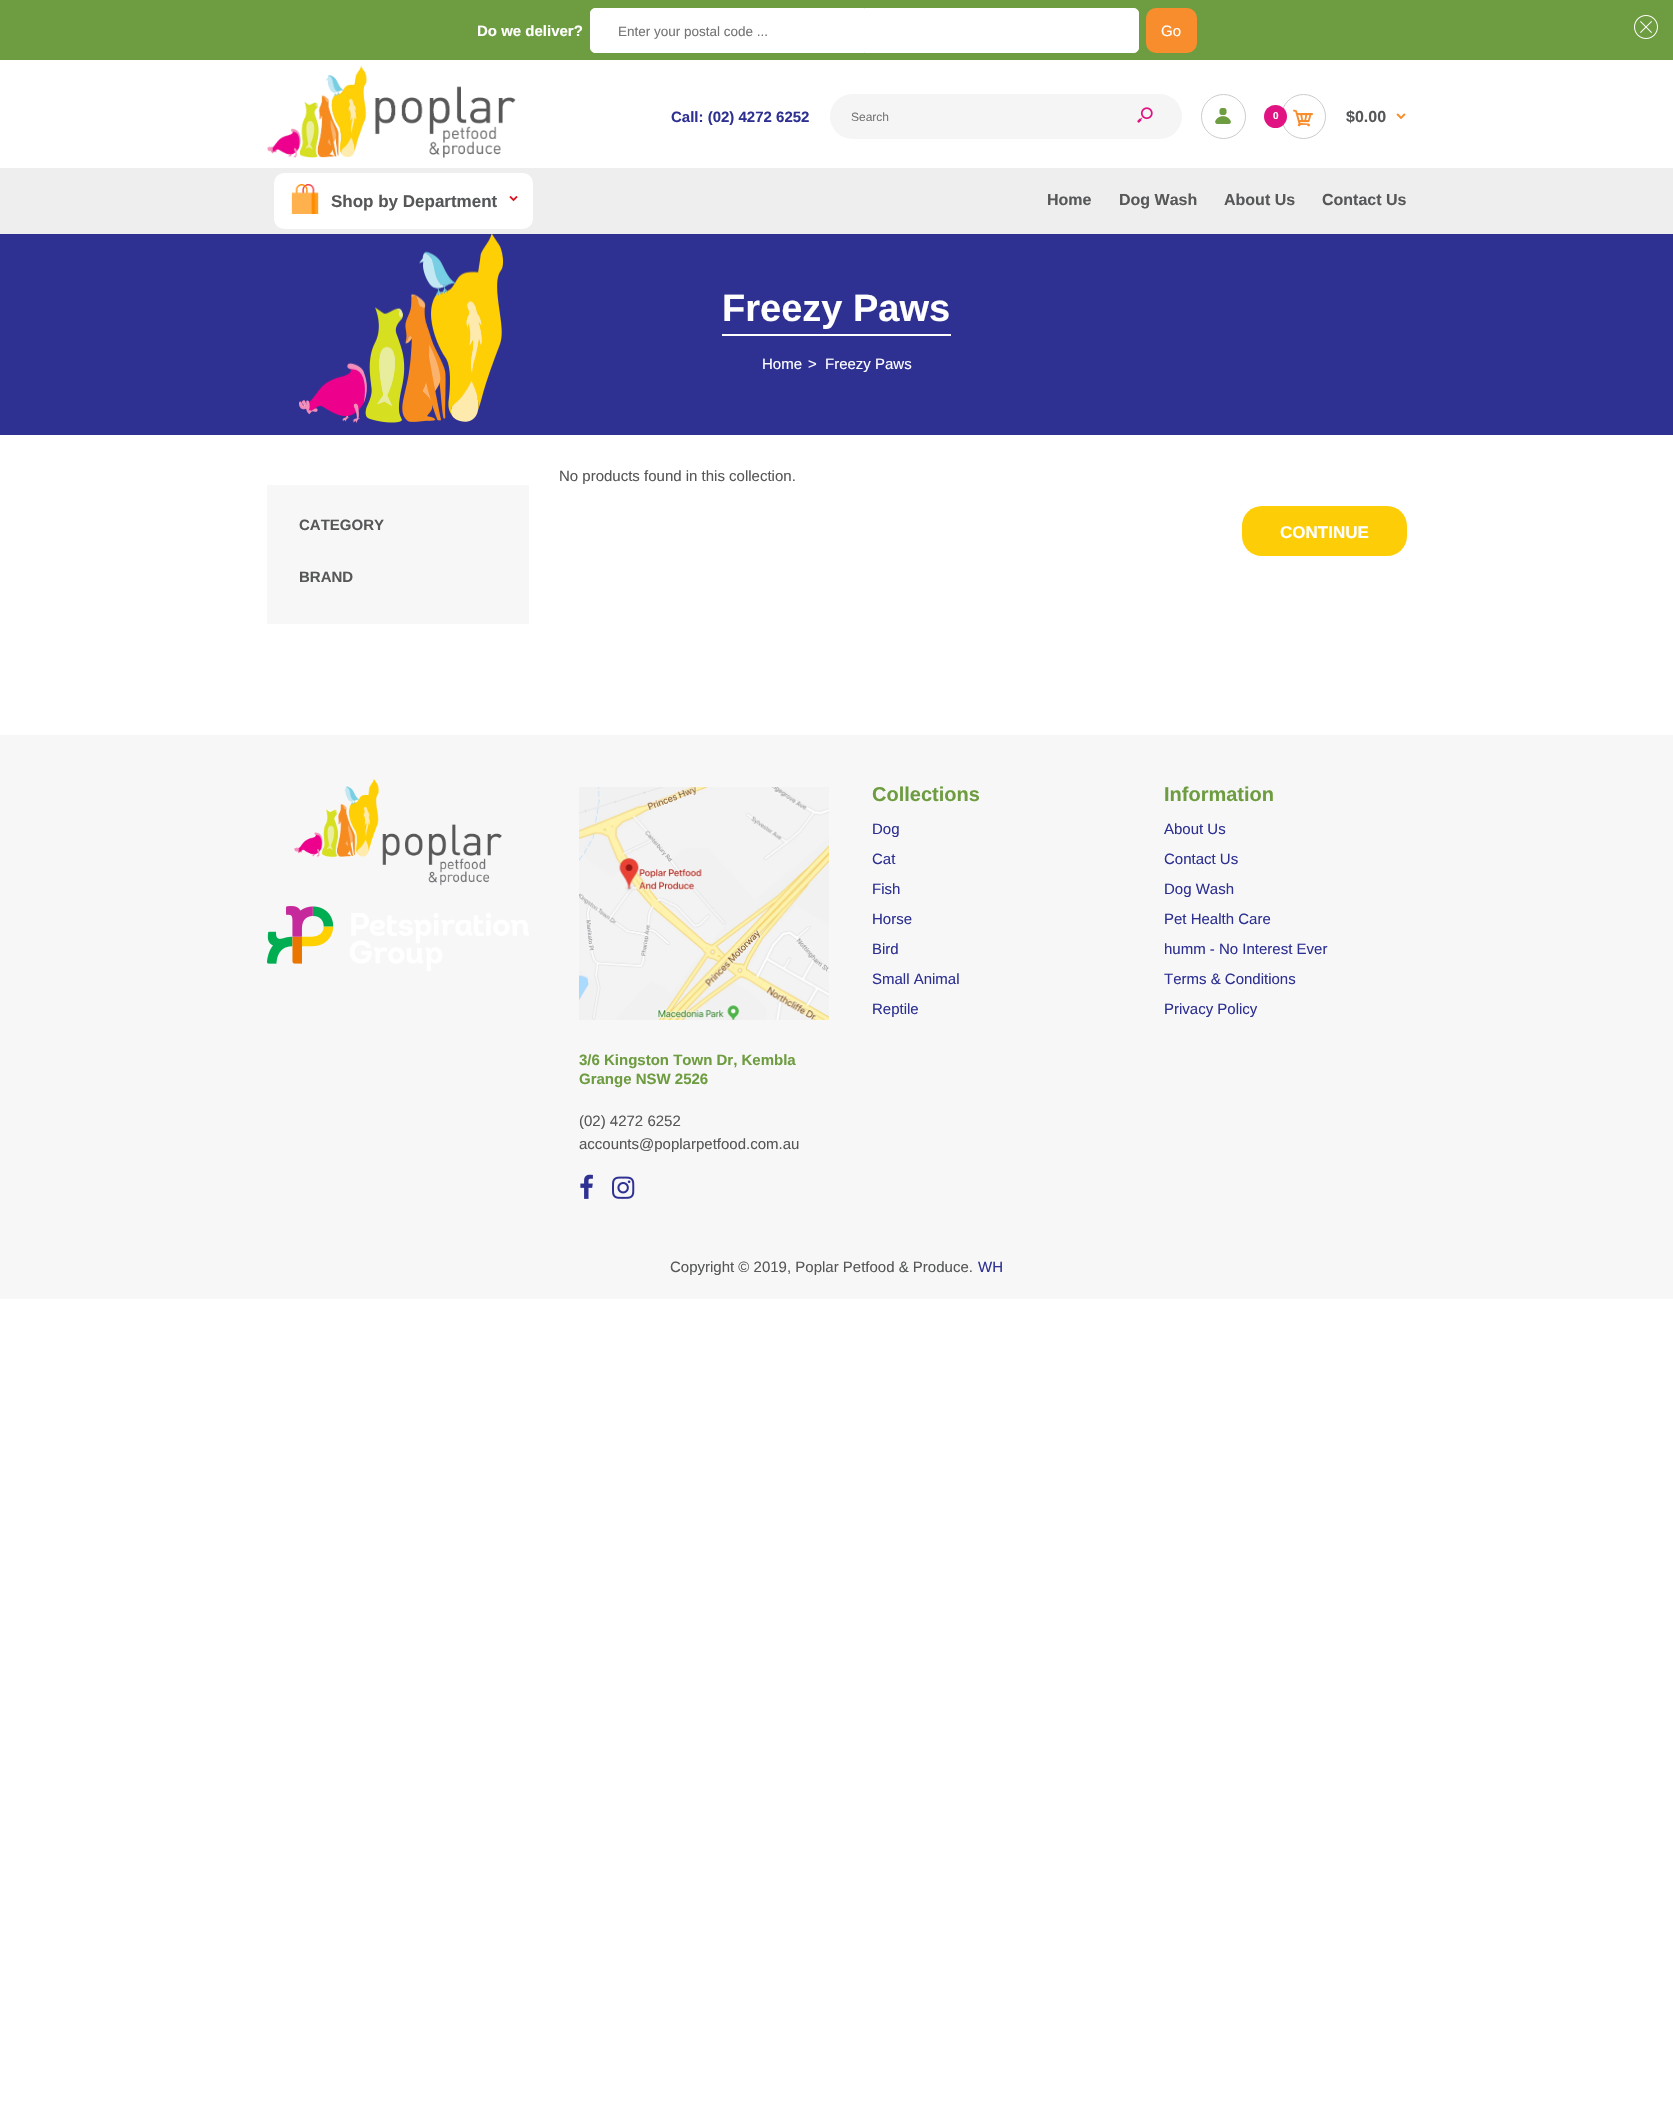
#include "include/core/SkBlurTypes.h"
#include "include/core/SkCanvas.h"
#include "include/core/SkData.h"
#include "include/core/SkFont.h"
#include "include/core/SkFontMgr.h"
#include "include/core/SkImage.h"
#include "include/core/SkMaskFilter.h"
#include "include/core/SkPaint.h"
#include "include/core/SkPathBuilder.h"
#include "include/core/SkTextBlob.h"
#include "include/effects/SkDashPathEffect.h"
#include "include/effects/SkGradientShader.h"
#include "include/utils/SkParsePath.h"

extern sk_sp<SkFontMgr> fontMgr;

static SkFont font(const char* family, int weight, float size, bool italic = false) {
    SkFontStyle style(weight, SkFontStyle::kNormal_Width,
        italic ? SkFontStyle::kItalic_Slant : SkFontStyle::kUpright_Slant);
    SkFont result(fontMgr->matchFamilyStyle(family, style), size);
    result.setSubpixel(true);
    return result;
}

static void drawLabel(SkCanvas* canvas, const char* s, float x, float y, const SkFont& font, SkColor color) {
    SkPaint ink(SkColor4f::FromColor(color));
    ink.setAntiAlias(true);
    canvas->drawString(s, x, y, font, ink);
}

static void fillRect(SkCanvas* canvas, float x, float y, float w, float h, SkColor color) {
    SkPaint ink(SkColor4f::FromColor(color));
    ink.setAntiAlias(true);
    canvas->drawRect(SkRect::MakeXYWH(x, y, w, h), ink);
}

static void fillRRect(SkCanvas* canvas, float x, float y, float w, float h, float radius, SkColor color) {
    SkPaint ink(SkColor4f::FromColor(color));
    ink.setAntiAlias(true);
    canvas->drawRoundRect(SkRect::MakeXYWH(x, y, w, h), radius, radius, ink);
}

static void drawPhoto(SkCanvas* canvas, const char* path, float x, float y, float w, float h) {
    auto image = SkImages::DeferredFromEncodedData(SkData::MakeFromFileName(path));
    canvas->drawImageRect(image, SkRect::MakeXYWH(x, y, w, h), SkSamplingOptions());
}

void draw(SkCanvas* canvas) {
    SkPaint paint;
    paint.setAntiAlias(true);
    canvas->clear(0xFFFFFFFF);
    fillRect(canvas, 0, 0, 1673, 60, 0xFF6E9C40);
    SkFont font1 = font("Liberation Sans", 700, 15);
    drawLabel(canvas, "Do we deliver?", 477, 36, font1, 0xFFFFFFFF);
    paint.setColor(0xFFFFFFFF);
    canvas->drawRoundRect(SkRect::MakeXYWH(590.5f, 8.5f, 548, 44), 4.5f, 4.5f, paint);
    paint.setStroke(true);
    paint.setStrokeWidth(1);
    canvas->drawRoundRect(SkRect::MakeXYWH(590.5f, 8.5f, 548, 44), 4.5f, 4.5f, paint);
    SkFont font2 = font("Liberation Sans", 400, 13.5f);
    drawLabel(canvas, "Enter your postal code ...", 618, 36, font2, 0xFF757575);
    fillRRect(canvas, 1146, 8, 51, 45, 10, 0xFFF78D2D);
    SkFont font3 = font("Liberation Sans", 400, 15);
    drawLabel(canvas, "Go", 1161, 36, font3, 0xFFFFFFFF);
    drawPhoto(canvas, "assets/img1.png", 1634, 15, 24, 24);
    drawPhoto(canvas, "assets/img2.png", 267, 66, 249, 92);
    drawLabel(canvas, "Call: (02) 4272 6252", 671, 122, font1, 0xFF2E3192);
    fillRRect(canvas, 830, 94, 352, 45, 22.5f, 0xFFF5F5F5);
    SkFont font4 = font("Liberation Sans", 400, 12);
    drawLabel(canvas, "Search", 851, 121, font4, 0xFF757575);
    drawPhoto(canvas, "assets/img3.png", 1137, 107, 16, 16);
    paint.setColor(0xFFCCCCCC);
    canvas->drawCircle(1223.5f, 116.5f, 22, paint);
    drawPhoto(canvas, "assets/img4.png", 1215, 108, 16, 16);
    canvas->drawCircle(1303.5f, 116.5f, 22, paint);
    paint.setStroke(false);
    paint.setColor(0xFFE11383);
    canvas->drawCircle(1275.5f, 116.5f, 11.5f, paint);
    SkFont font5 = font("Liberation Sans", 700, 10);
    drawLabel(canvas, "0", 1273, 119, font5, 0xFFFFFFFF);
    drawPhoto(canvas, "assets/img5.png", 1293, 109, 20, 18);
    SkFont font6 = font("Liberation Sans", 700, 16);
    drawLabel(canvas, "$0.00", 1346, 122, font6, 0xFF555759);
    drawPhoto(canvas, "assets/img6.png", 1396, 113, 10, 7);
    fillRect(canvas, 0, 168, 1673, 66, 0xFFEEEEEE);
    fillRRect(canvas, 274, 173, 259, 56, 10, 0xFFFFFFFF);
    drawPhoto(canvas, "assets/img7.png", 291, 184, 28, 30);
    SkFont font7 = font("Liberation Sans", 700, 17);
    drawLabel(canvas, "Shop by Department", 331, 207, font7, 0xFF555759);
    drawPhoto(canvas, "assets/img8.png", 509, 196, 9, 6);
    drawLabel(canvas, "Home", 1047, 205, font6, 0xFF555759);
    drawLabel(canvas, "Dog Wash", 1119, 205, font6, 0xFF555759);
    drawLabel(canvas, "About Us", 1224, 205, font6, 0xFF555759);
    drawLabel(canvas, "Contact Us", 1322, 205, font6, 0xFF555759);
    fillRect(canvas, 0, 234, 1673, 201, 0xFF2E3192);
    drawPhoto(canvas, "assets/img9.png", 299, 234, 204, 189);
    fillRect(canvas, 722, 334, 229, 2, 0xFFFFFFFF);
    SkFont font8 = font("Liberation Sans", 700, 38);
    drawLabel(canvas, "Freezy Paws", 722, 321, font8, 0xFFFFFFFF);
    drawLabel(canvas, "Home", 762, 369, font3, 0xFFFFFFFF);
    drawLabel(canvas, ">", 808, 369, font3, 0xFFFFFFFF);
    drawLabel(canvas, "Freezy Paws", 825, 369, font3, 0xFFFFFFFF);
    drawLabel(canvas, "No products found in this collection.", 559, 481, font3, 0xFF555759);
    fillRRect(canvas, 1242, 506, 165, 50, 20, 0xFFFDCE07);
    drawLabel(canvas, "CONTINUE", 1280, 538, font7, 0xFFFFFFFF);
    fillRect(canvas, 267, 485, 262, 139, 0xFFF7F7F7);
    drawLabel(canvas, "CATEGORY", 299, 530, font1, 0xFF555759);
    drawLabel(canvas, "BRAND", 299, 582, font1, 0xFF555759);
    fillRect(canvas, 0, 735, 1673, 564, 0xFFF7F7F7);
    drawPhoto(canvas, "assets/img10.png", 294, 778, 208, 108);
    drawPhoto(canvas, "assets/img11.png", 267, 906, 262, 65);
    SkFont font9 = font("Liberation Sans", 700, 20);
    drawLabel(canvas, "Collections", 872, 801, font9, 0xFF6E9C40);
    drawLabel(canvas, "Dog", 872, 834, font3, 0xFF2E3192);
    drawLabel(canvas, "Cat", 872, 864, font3, 0xFF2E3192);
    drawLabel(canvas, "Fish", 872, 894, font3, 0xFF2E3192);
    drawLabel(canvas, "Horse", 872, 924, font3, 0xFF2E3192);
    drawLabel(canvas, "Bird", 872, 954, font3, 0xFF2E3192);
    drawLabel(canvas, "Small Animal", 872, 984, font3, 0xFF2E3192);
    drawLabel(canvas, "Reptile", 872, 1014, font3, 0xFF2E3192);
    drawLabel(canvas, "Information", 1164, 801, font9, 0xFF6E9C40);
    drawLabel(canvas, "About Us", 1164, 834, font3, 0xFF2E3192);
    drawLabel(canvas, "Contact Us", 1164, 864, font3, 0xFF2E3192);
    drawLabel(canvas, "Dog Wash", 1164, 894, font3, 0xFF2E3192);
    drawLabel(canvas, "Pet Health Care", 1164, 924, font3, 0xFF2E3192);
    drawLabel(canvas, "humm - No Interest Ever", 1164, 954, font3, 0xFF2E3192);
    drawLabel(canvas, "Terms & Conditions", 1164, 984, font3, 0xFF2E3192);
    drawLabel(canvas, "Privacy Policy", 1164, 1014, font3, 0xFF2E3192);
    drawPhoto(canvas, "assets/img12.png", 579, 787, 250, 233);
    drawLabel(canvas, "3/6 Kingston Town Dr, Kembla", 579, 1065, font1, 0xFF6E9C40);
    drawLabel(canvas, "Grange NSW 2526", 579, 1084, font1, 0xFF6E9C40);
    drawLabel(canvas, "(02) 4272 6252", 579, 1126, font3, 0xFF555759);
    drawLabel(canvas, "accounts@poplarpetfood.com.au", 579, 1149, font3, 0xFF555759);
    drawPhoto(canvas, "assets/img13.png", 580, 1174, 13, 25);
    drawPhoto(canvas, "assets/img14.png", 612, 1176, 23, 23);
    drawLabel(canvas, "Copyright © 2019, Poplar Petfood & Produce.", 670, 1272, font3, 0xFF555759);
    drawLabel(canvas, "WH", 978, 1272, font3, 0xFF2E3192);
}
